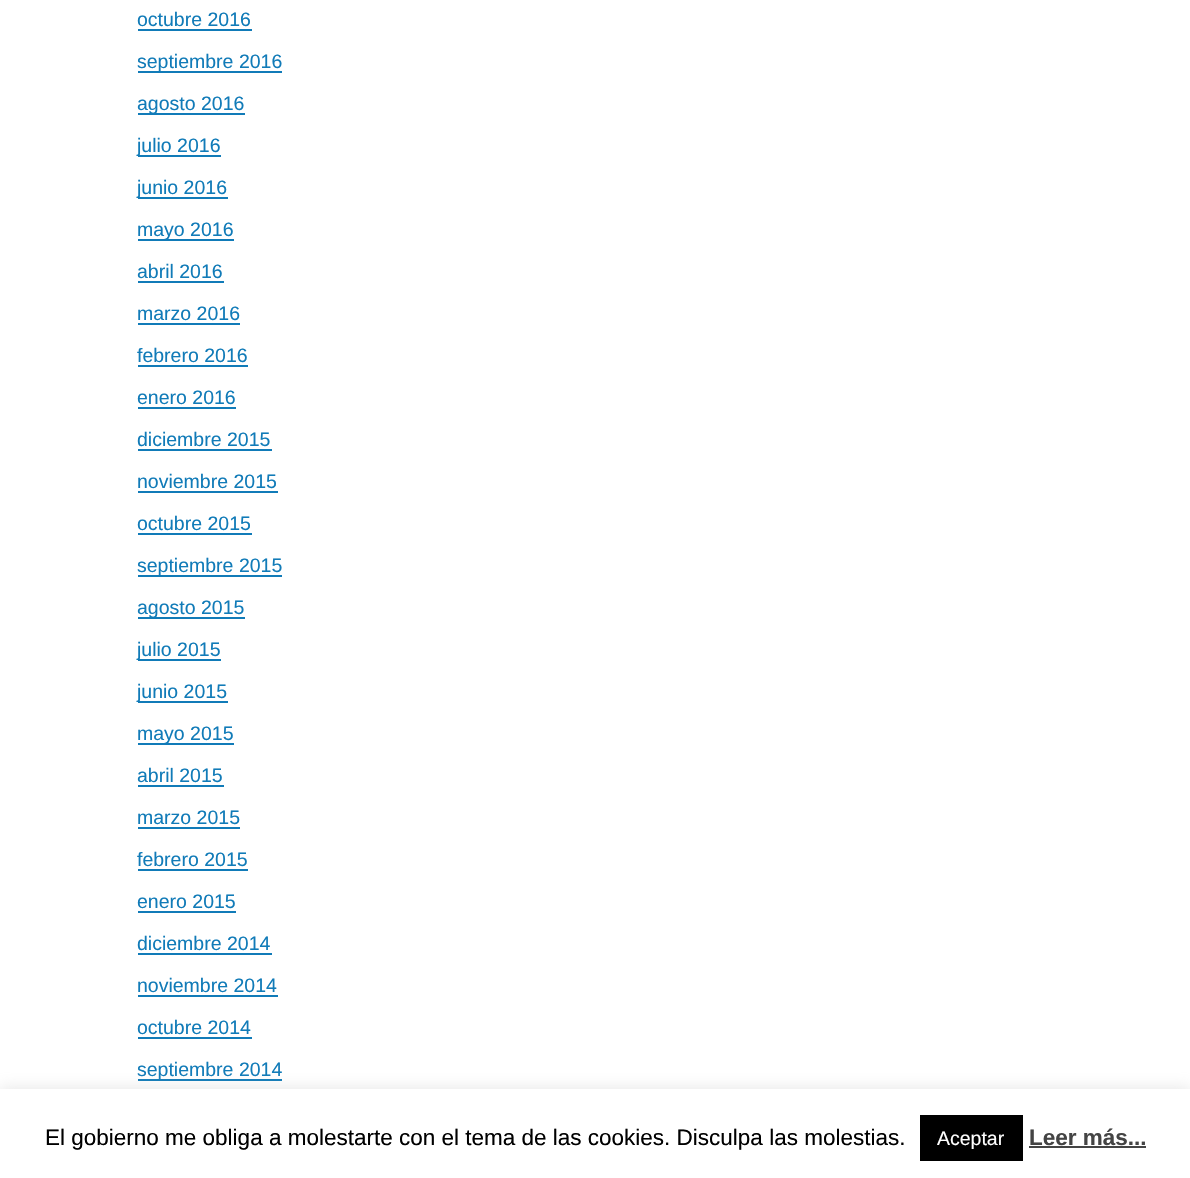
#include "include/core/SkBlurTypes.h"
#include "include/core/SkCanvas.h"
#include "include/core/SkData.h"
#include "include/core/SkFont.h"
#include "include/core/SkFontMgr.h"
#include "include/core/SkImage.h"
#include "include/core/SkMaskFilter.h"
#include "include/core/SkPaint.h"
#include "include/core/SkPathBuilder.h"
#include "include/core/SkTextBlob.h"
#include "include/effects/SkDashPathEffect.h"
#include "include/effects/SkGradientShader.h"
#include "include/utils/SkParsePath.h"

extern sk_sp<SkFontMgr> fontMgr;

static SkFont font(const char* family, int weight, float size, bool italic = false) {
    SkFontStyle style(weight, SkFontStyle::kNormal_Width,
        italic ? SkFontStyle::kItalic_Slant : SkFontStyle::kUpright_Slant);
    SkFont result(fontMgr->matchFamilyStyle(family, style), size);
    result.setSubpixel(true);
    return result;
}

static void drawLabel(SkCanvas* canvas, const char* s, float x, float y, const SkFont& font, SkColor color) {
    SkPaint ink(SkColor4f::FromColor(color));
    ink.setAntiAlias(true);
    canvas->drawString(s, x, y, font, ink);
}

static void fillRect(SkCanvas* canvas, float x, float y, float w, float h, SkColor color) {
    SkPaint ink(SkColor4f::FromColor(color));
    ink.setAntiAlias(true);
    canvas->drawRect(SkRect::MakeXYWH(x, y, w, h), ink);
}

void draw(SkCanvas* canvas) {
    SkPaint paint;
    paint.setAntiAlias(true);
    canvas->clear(0xFFFFFFFF);
    SkFont font1 = font("Liberation Sans", 400, 19.5f);
    drawLabel(canvas, "octubre 2016", 137, 26, font1, 0xFF117BB8);
    fillRect(canvas, 138, 29, 114, 2, 0xFF117BB8);
    fillRect(canvas, 138, 71, 144, 2, 0xFF117BB8);
    drawLabel(canvas, "septiembre 2016", 137, 68, font1, 0xFF117BB8);
    fillRect(canvas, 138, 113, 107, 2, 0xFF117BB8);
    drawLabel(canvas, "agosto 2016", 137, 110, font1, 0xFF117BB8);
    fillRect(canvas, 138, 155, 83, 2, 0xFF117BB8);
    drawLabel(canvas, "julio 2016", 137, 152, font1, 0xFF117BB8);
    fillRect(canvas, 138, 197, 90, 2, 0xFF117BB8);
    drawLabel(canvas, "junio 2016", 137, 194, font1, 0xFF117BB8);
    fillRect(canvas, 138, 239, 96, 2, 0xFF117BB8);
    drawLabel(canvas, "mayo 2016", 137, 236, font1, 0xFF117BB8);
    drawLabel(canvas, "abril 2016", 137, 278, font1, 0xFF117BB8);
    fillRect(canvas, 138, 281, 86, 2, 0xFF117BB8);
    drawLabel(canvas, "marzo 2016", 137, 320, font1, 0xFF117BB8);
    fillRect(canvas, 138, 323, 102, 2, 0xFF117BB8);
    drawLabel(canvas, "febrero 2016", 137, 362, font1, 0xFF117BB8);
    fillRect(canvas, 138, 365, 110, 2, 0xFF117BB8);
    drawLabel(canvas, "enero 2016", 137, 404, font1, 0xFF117BB8);
    fillRect(canvas, 138, 407, 98, 2, 0xFF117BB8);
    drawLabel(canvas, "diciembre 2015", 137, 446, font1, 0xFF117BB8);
    fillRect(canvas, 138, 449, 134, 2, 0xFF117BB8);
    drawLabel(canvas, "noviembre 2015", 137, 488, font1, 0xFF117BB8);
    fillRect(canvas, 138, 491, 140, 2, 0xFF117BB8);
    drawLabel(canvas, "octubre 2015", 137, 530, font1, 0xFF117BB8);
    fillRect(canvas, 138, 533, 114, 2, 0xFF117BB8);
    fillRect(canvas, 138, 575, 144, 2, 0xFF117BB8);
    drawLabel(canvas, "septiembre 2015", 137, 572, font1, 0xFF117BB8);
    fillRect(canvas, 138, 617, 107, 2, 0xFF117BB8);
    drawLabel(canvas, "agosto 2015", 137, 614, font1, 0xFF117BB8);
    fillRect(canvas, 138, 659, 83, 2, 0xFF117BB8);
    drawLabel(canvas, "julio 2015", 137, 656, font1, 0xFF117BB8);
    fillRect(canvas, 138, 701, 90, 2, 0xFF117BB8);
    drawLabel(canvas, "junio 2015", 137, 698, font1, 0xFF117BB8);
    fillRect(canvas, 138, 743, 96, 2, 0xFF117BB8);
    drawLabel(canvas, "mayo 2015", 137, 740, font1, 0xFF117BB8);
    drawLabel(canvas, "abril 2015", 137, 782, font1, 0xFF117BB8);
    fillRect(canvas, 138, 785, 86, 2, 0xFF117BB8);
    drawLabel(canvas, "marzo 2015", 137, 824, font1, 0xFF117BB8);
    fillRect(canvas, 138, 827, 102, 2, 0xFF117BB8);
    drawLabel(canvas, "febrero 2015", 137, 866, font1, 0xFF117BB8);
    fillRect(canvas, 138, 869, 110, 2, 0xFF117BB8);
    drawLabel(canvas, "enero 2015", 137, 908, font1, 0xFF117BB8);
    fillRect(canvas, 138, 911, 98, 2, 0xFF117BB8);
    drawLabel(canvas, "diciembre 2014", 137, 950, font1, 0xFF117BB8);
    fillRect(canvas, 138, 953, 134, 2, 0xFF117BB8);
    drawLabel(canvas, "noviembre 2014", 137, 992, font1, 0xFF117BB8);
    fillRect(canvas, 138, 995, 140, 2, 0xFF117BB8);
    drawLabel(canvas, "octubre 2014", 137, 1034, font1, 0xFF117BB8);
    fillRect(canvas, 138, 1037, 114, 2, 0xFF117BB8);
    fillRect(canvas, 138, 1079, 144, 2, 0xFF117BB8);
    drawLabel(canvas, "septiembre 2014", 137, 1076, font1, 0xFF117BB8);
    paint.setColor(0x4DACABAB);
    paint.setMaskFilter(SkMaskFilter::MakeBlur(kNormal_SkBlurStyle, 7.5f));
    canvas->drawRect(SkRect::MakeXYWH(0, 1088, 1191, 90), paint);
    paint.setMaskFilter(nullptr);
    fillRect(canvas, 0, 1089, 1190, 89, 0xFFFFFFFF);
    SkFont font2 = font("Liberation Sans", 400, 22.5f);
    drawLabel(canvas, "El gobierno me obliga a molestarte con el tema de las cookies. Disculpa las molestias.", 45, 1145, font2, 0xFF000000);
    fillRect(canvas, 920, 1115, 103, 46, 0xFF000000);
    drawLabel(canvas, "Aceptar", 937, 1145, font1, 0xFFFFFFFF);
    SkFont font3 = font("Liberation Sans", 700, 22.5f);
    drawLabel(canvas, "Leer más...", 1029, 1145, font3, 0xFF444444);
    fillRect(canvas, 1029, 1146, 117, 2, 0xFF444444);
}
